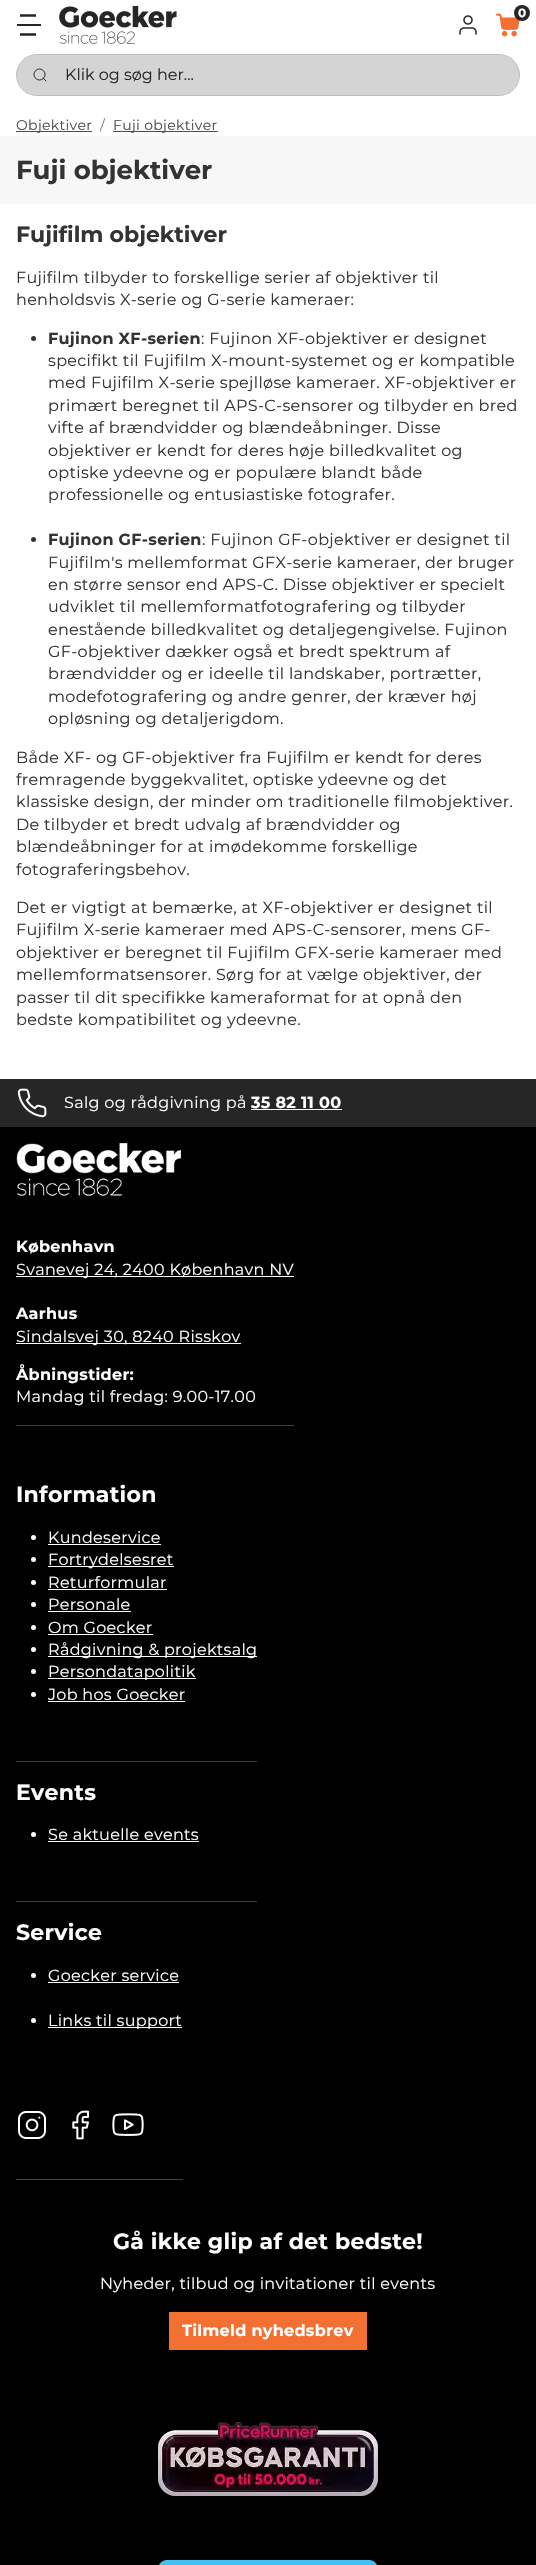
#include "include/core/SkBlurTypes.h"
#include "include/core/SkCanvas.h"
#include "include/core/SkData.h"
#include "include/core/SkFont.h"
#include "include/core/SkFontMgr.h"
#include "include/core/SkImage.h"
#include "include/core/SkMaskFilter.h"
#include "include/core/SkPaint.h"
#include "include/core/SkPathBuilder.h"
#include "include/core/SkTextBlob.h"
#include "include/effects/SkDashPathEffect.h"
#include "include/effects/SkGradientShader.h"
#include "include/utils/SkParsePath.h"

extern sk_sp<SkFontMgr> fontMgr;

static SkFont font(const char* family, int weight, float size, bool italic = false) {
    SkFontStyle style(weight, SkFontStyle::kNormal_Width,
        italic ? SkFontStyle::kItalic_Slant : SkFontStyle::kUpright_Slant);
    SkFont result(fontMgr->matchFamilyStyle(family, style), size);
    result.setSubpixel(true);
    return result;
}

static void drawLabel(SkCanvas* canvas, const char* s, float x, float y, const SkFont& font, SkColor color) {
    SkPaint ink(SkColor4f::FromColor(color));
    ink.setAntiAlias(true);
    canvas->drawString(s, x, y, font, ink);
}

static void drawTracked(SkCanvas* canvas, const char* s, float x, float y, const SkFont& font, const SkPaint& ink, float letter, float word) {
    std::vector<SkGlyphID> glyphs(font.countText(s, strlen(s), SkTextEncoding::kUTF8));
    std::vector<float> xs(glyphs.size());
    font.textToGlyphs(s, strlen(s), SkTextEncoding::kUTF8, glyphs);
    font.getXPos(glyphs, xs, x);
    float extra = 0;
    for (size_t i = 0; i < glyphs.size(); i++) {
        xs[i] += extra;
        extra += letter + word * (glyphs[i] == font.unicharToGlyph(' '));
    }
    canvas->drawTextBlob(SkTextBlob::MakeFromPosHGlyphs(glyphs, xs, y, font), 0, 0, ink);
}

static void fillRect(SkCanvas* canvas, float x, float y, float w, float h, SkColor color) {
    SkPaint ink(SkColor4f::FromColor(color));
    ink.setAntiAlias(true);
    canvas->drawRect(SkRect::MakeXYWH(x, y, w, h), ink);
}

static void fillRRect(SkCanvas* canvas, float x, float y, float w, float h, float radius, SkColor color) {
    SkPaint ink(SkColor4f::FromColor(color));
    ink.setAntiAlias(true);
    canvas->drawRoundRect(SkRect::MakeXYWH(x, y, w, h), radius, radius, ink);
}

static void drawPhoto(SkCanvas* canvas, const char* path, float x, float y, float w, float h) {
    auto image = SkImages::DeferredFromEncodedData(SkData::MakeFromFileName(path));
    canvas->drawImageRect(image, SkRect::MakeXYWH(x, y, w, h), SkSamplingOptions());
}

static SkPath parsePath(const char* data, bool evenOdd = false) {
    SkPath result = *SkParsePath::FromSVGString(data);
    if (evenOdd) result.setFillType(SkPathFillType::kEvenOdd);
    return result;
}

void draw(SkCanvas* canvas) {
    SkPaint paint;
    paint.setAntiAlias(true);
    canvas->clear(0xFFFFFFFF);
    drawPhoto(canvas, "assets/img1.png", 59, 6, 118, 38);
    drawPhoto(canvas, "assets/img2.png", 496, 13, 24, 24);
    paint.setColor(0xFF262626);
    canvas->drawCircle(522, 13, 8, paint);
    SkFont font1 = font("Montserrat", 700, 12);
    paint.setColor(0xFFFFFFFF);
    drawTracked(canvas, "0", 518, 17, font1, paint, 0.32f, 0);
    drawPhoto(canvas, "assets/img3.png", 459, 15, 18, 20);
    fillRect(canvas, 17, 24, 24, 2, 0xFF262626);
    paint.setStroke(true);
    paint.setStrokeWidth(2.4f);
    paint.setColor(0xFF262626);
    canvas->drawPath(parsePath("M20 15.5H36M20 34.5H36"), paint);
    fillRRect(canvas, 17, 55, 502, 40, 20, 0xFFD4D4D4);
    paint.setStrokeWidth(1);
    paint.setColor(0x4D262626);
    canvas->drawRoundRect(SkRect::MakeXYWH(16.5f, 54.5f, 503, 41), 20.5f, 20.5f, paint);
    paint.setColor(0xFF262626);
    canvas->drawCircle(39.5f, 74.5f, 5.5f, paint);
    paint.setStrokeCap(SkPaint::kRound_Cap);
    paint.setStrokeJoin(SkPaint::kRound_Join);
    canvas->drawPath(parsePath("M46 81L43 78"), paint);
    SkFont font2 = font("Montserrat", 400, 16);
    drawLabel(canvas, "Klik og søg her...", 65, 80, font2, 0xFF262626);
    fillRect(canvas, 16, 131, 76, 1, 0xFF4D4D4D);
    SkFont font3 = font("Montserrat", 400, 14);
    paint.setStroke(false);
    paint.setColor(0xFF4D4D4D);
    drawTracked(canvas, "Objektiver", 16, 130, font3, paint, 0.32f, 0);
    paint.setColor(0xFF808080);
    drawTracked(canvas, "/", 100, 130, font3, paint, 0.32f, 0);
    fillRect(canvas, 113, 131, 105, 1, 0xFF4D4D4D);
    paint.setColor(0xFF4D4D4D);
    drawTracked(canvas, "Fuji objektiver", 113, 130, font3, paint, 0.32f, 0);
    fillRect(canvas, 0, 136, 536, 68, 0xFFF7F7F7);
    SkFont font4 = font("Montserrat", 700, 26);
    drawLabel(canvas, "Fuji objektiver", 16, 179, font4, 0xFF333333);
    SkFont font5 = font("Montserrat", 700, 22);
    drawLabel(canvas, "Fujifilm objektiver", 16, 242, font5, 0xFF333333);
    paint.setColor(0xFF333333);
    drawTracked(canvas, "Fujifilm tilbyder to forskellige serier af objektiver til", 16, 283, font2, paint, 0.32f, 0);
    drawTracked(canvas, "henholdsvis X-serie og G-serie kameraer:", 16, 305, font2, paint, 0.32f, 0);
    canvas->drawCircle(33.5f, 338.5f, 2.5f, paint);
    SkFont font6 = font("Montserrat", 700, 16);
    drawTracked(canvas, "Fujinon XF-serien", 48, 344, font6, paint, 0.32f, 0);
    drawTracked(canvas, ": Fujinon XF-objektiver er designet", 201, 344, font2, paint, 0.32f, 0);
    drawTracked(canvas, "specifikt til Fujifilm X-mount-systemet og er kompatible", 48, 366, font2, paint, 0.32f, 0);
    drawTracked(canvas, "med Fujifilm X-serie spejlløse kameraer. XF-objektiver er", 48, 388, font2, paint, 0.32f, 0);
    drawTracked(canvas, "primært beregnet til APS-C-sensorer og tilbyder en bred", 48, 411, font2, paint, 0.32f, 0);
    drawTracked(canvas, "vifte af brændvidder og blændeåbninger. Disse", 48, 433, font2, paint, 0.32f, 0);
    drawTracked(canvas, "objektiver er kendt for deres høje billedkvalitet og", 48, 456, font2, paint, 0.32f, 0);
    drawTracked(canvas, "optiske ydeevne og er populære blandt både", 48, 478, font2, paint, 0.32f, 0);
    drawTracked(canvas, "professionelle og entusiastiske fotografer.", 48, 500, font2, paint, 0.32f, 0);
    canvas->drawCircle(33.5f, 539.5f, 2.5f, paint);
    drawTracked(canvas, "Fujinon GF-serien", 48, 545, font6, paint, 0.32f, 0);
    drawTracked(canvas, ": Fujinon GF-objektiver er designet til", 202, 545, font2, paint, 0.32f, 0);
    drawTracked(canvas, "Fujifilm's mellemformat GFX-serie kameraer, der bruger", 48, 568, font2, paint, 0.32f, 0);
    drawTracked(canvas, "en større sensor end APS-C. Disse objektiver er specielt", 48, 590, font2, paint, 0.32f, 0);
    drawTracked(canvas, "udviklet til mellemformatfotografering og tilbyder", 48, 612, font2, paint, 0.32f, 0);
    drawTracked(canvas, "enestående billedkvalitet og detaljegengivelse. Fujinon", 48, 635, font2, paint, 0.32f, 0);
    drawTracked(canvas, "GF-objektiver dækker også et bredt spektrum af", 48, 657, font2, paint, 0.32f, 0);
    drawTracked(canvas, "brændvidder og er ideelle til landskaber, portrætter,", 48, 679, font2, paint, 0.32f, 0);
    drawTracked(canvas, "modefotografering og andre genrer, der kræver høj", 48, 702, font2, paint, 0.32f, 0);
    drawTracked(canvas, "opløsning og detaljerigdom.", 48, 724, font2, paint, 0.32f, 0);
    drawTracked(canvas, "Både XF- og GF-objektiver fra Fujifilm er kendt for deres", 16, 763, font2, paint, 0.32f, 0);
    drawTracked(canvas, "fremragende byggekvalitet, optiske ydeevne og det", 16, 785, font2, paint, 0.32f, 0);
    drawTracked(canvas, "klassiske design, der minder om traditionelle filmobjektiver.", 16, 807, font2, paint, 0.32f, 0);
    drawTracked(canvas, "De tilbyder et bredt udvalg af brændvidder og", 16, 830, font2, paint, 0.32f, 0);
    drawTracked(canvas, "blændeåbninger for at imødekomme forskellige", 16, 852, font2, paint, 0.32f, 0);
    drawTracked(canvas, "fotograferingsbehov.", 16, 875, font2, paint, 0.32f, 0);
    drawTracked(canvas, "Det er vigtigt at bemærke, at XF-objektiver er designet til", 16, 913, font2, paint, 0.32f, 0);
    drawTracked(canvas, "Fujifilm X-serie kameraer med APS-C-sensorer, mens GF-", 16, 935, font2, paint, 0.32f, 0);
    drawTracked(canvas, "objektiver er beregnet til Fujifilm GFX-serie kameraer med", 16, 958, font2, paint, 0.32f, 0);
    drawTracked(canvas, "mellemformatsensorer. Sørg for at vælge objektiver, der", 16, 980, font2, paint, 0.32f, 0);
    drawTracked(canvas, "passer til dit specifikke kameraformat for at opnå den", 16, 1003, font2, paint, 0.32f, 0);
    drawTracked(canvas, "bedste kompatibilitet og ydeevne.", 16, 1025, font2, paint, 0.32f, 0);
    fillRect(canvas, 0, 1079, 536, 48, 0xFF262626);
    drawPhoto(canvas, "assets/img4.png", 17, 1088, 30, 30);
    paint.setColor(0xFFFFFFFF);
    drawTracked(canvas, "Salg og rådgivning på", 64, 1108, font2, paint, 0.32f, 0);
    drawTracked(canvas, "35 82 11 00", 251, 1108, font6, paint, 0.32f, 0);
    fillRect(canvas, 251, 1109, 91, 1, 0xFFFFFFFF);
    fillRect(canvas, 0, 1127, 536, 1438, 0xFF000000);
    drawPhoto(canvas, "assets/img5.png", 16, 1143, 165, 53);
    drawTracked(canvas, "København", 16, 1252, font6, paint, 0.32f, 0);
    fillRect(canvas, 16, 1276, 278, 1, 0xFFFFFFFF);
    drawTracked(canvas, "Svanevej 24, 2400 København NV", 16, 1275, font2, paint, 0.32f, 0);
    drawTracked(canvas, "Aarhus", 16, 1319, font6, paint, 0.32f, 0);
    fillRect(canvas, 16, 1343, 225, 1, 0xFFFFFFFF);
    drawTracked(canvas, "Sindalsvej 30, 8240 Risskov", 16, 1342, font2, paint, 0.32f, 0);
    drawTracked(canvas, "Åbningstider:", 16, 1380, font6, paint, 0.32f, 0);
    drawTracked(canvas, "Mandag til fredag: 9.00-17.00", 16, 1402, font2, paint, 0.32f, 0);
    fillRect(canvas, 16, 1425, 278, 1, 0xFF404040);
    drawTracked(canvas, "Information", 16, 1502, font5, paint, 0.32f, 0);
    canvas->drawCircle(33.5f, 1537.5f, 2.5f, paint);
    drawTracked(canvas, "Kundeservice", 48, 1543, font2, paint, 0.32f, 0);
    fillRect(canvas, 48, 1544, 113, 1, 0xFFFFFFFF);
    canvas->drawCircle(33.5f, 1559.5f, 2.5f, paint);
    fillRect(canvas, 48, 1566, 126, 1, 0xFFFFFFFF);
    drawTracked(canvas, "Fortrydelsesret", 48, 1565, font2, paint, 0.32f, 0);
    canvas->drawCircle(33.5f, 1582.5f, 2.5f, paint);
    drawTracked(canvas, "Returformular", 48, 1588, font2, paint, 0.32f, 0);
    fillRect(canvas, 48, 1589, 119, 1, 0xFFFFFFFF);
    canvas->drawCircle(33.5f, 1604.5f, 2.5f, paint);
    drawTracked(canvas, "Personale", 48, 1610, font2, paint, 0.32f, 0);
    fillRect(canvas, 48, 1611, 83, 1, 0xFFFFFFFF);
    canvas->drawCircle(33.5f, 1627.5f, 2.5f, paint);
    drawTracked(canvas, "Om Goecker", 48, 1633, font2, paint, 0.32f, 0);
    fillRect(canvas, 48, 1634, 105, 1, 0xFFFFFFFF);
    canvas->drawCircle(33.5f, 1649.5f, 2.5f, paint);
    fillRect(canvas, 48, 1656, 209, 1, 0xFFFFFFFF);
    drawTracked(canvas, "Rådgivning & projektsalg", 48, 1655, font2, paint, 0.32f, 0);
    canvas->drawCircle(33.5f, 1671.5f, 2.5f, paint);
    fillRect(canvas, 48, 1678, 148, 1, 0xFFFFFFFF);
    drawTracked(canvas, "Persondatapolitik", 48, 1677, font2, paint, 0.32f, 0);
    canvas->drawCircle(33.5f, 1694.5f, 2.5f, paint);
    drawTracked(canvas, "Job hos Goecker", 48, 1700, font2, paint, 0.32f, 0);
    fillRect(canvas, 48, 1701, 137, 1, 0xFFFFFFFF);
    fillRect(canvas, 16, 1761, 241, 1, 0xFF404040);
    drawTracked(canvas, "Events", 16, 1800, font5, paint, 0.32f, 0);
    canvas->drawCircle(33.5f, 1834.5f, 2.5f, paint);
    drawTracked(canvas, "Se aktuelle events", 48, 1840, font2, paint, 0.32f, 0);
    fillRect(canvas, 48, 1841, 151, 1, 0xFFFFFFFF);
    fillRect(canvas, 16, 1901, 241, 1, 0xFF404040);
    drawTracked(canvas, "Service", 16, 1940, font5, paint, 0.32f, 0);
    canvas->drawCircle(33.5f, 1975.5f, 2.5f, paint);
    drawTracked(canvas, "Goecker service", 48, 1981, font2, paint, 0.32f, 0);
    fillRect(canvas, 48, 1982, 131, 1, 0xFFFFFFFF);
    canvas->drawCircle(33.5f, 2020.5f, 2.5f, paint);
    fillRect(canvas, 48, 2027, 134, 1, 0xFFFFFFFF);
    drawTracked(canvas, "Links til support", 48, 2026, font2, paint, 0.32f, 0);
    drawPhoto(canvas, "assets/img6.png", 18, 2111, 28, 28);
    drawPhoto(canvas, "assets/img7.png", 72, 2110, 17, 30);
    drawPhoto(canvas, "assets/img8.png", 112, 2113, 32, 23);
    fillRect(canvas, 16, 2179, 167, 1, 0xFF404040);
    drawTracked(canvas, "Gå ikke glip af det bedste!", 113, 2249, font5, paint, 0.32f, 0);
    drawTracked(canvas, "Nyheder, tilbud og invitationer til events", 100, 2289, font2, paint, 0.32f, 0);
    fillRect(canvas, 169, 2312, 198, 38, 0xFFF37033);
    drawTracked(canvas, "Tilmeld nyhedsbrev", 182, 2336, font6, paint, 0.32f, 0);
    drawPhoto(canvas, "assets/img9.png", 158, 2422, 220, 74);
    drawPhoto(canvas, "assets/img10.png", 159, 2560, 218, 5);
}
